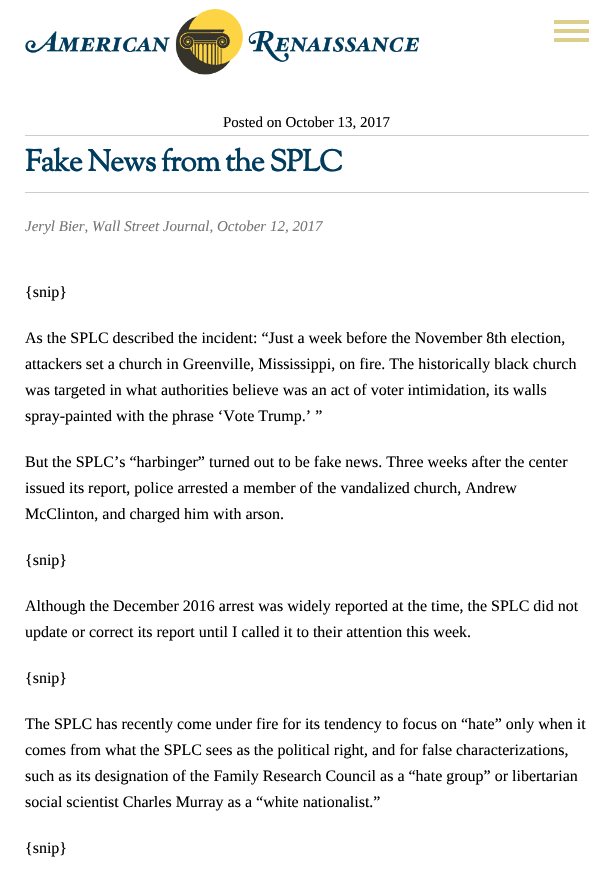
#include "include/core/SkBlurTypes.h"
#include "include/core/SkCanvas.h"
#include "include/core/SkData.h"
#include "include/core/SkFont.h"
#include "include/core/SkFontMgr.h"
#include "include/core/SkImage.h"
#include "include/core/SkMaskFilter.h"
#include "include/core/SkPaint.h"
#include "include/core/SkPathBuilder.h"
#include "include/core/SkTextBlob.h"
#include "include/effects/SkDashPathEffect.h"
#include "include/effects/SkGradientShader.h"
#include "include/utils/SkParsePath.h"

extern sk_sp<SkFontMgr> fontMgr;

static SkFont font(const char* family, int weight, float size, bool italic = false) {
    SkFontStyle style(weight, SkFontStyle::kNormal_Width,
        italic ? SkFontStyle::kItalic_Slant : SkFontStyle::kUpright_Slant);
    SkFont result(fontMgr->matchFamilyStyle(family, style), size);
    result.setSubpixel(true);
    return result;
}

static void drawLabel(SkCanvas* canvas, const char* s, float x, float y, const SkFont& font, SkColor color) {
    SkPaint ink(SkColor4f::FromColor(color));
    ink.setAntiAlias(true);
    canvas->drawString(s, x, y, font, ink);
}

static void drawTracked(SkCanvas* canvas, const char* s, float x, float y, const SkFont& font, const SkPaint& ink, float letter, float word) {
    std::vector<SkGlyphID> glyphs(font.countText(s, strlen(s), SkTextEncoding::kUTF8));
    std::vector<float> xs(glyphs.size());
    font.textToGlyphs(s, strlen(s), SkTextEncoding::kUTF8, glyphs);
    font.getXPos(glyphs, xs, x);
    float extra = 0;
    for (size_t i = 0; i < glyphs.size(); i++) {
        xs[i] += extra;
        extra += letter + word * (glyphs[i] == font.unicharToGlyph(' '));
    }
    canvas->drawTextBlob(SkTextBlob::MakeFromPosHGlyphs(glyphs, xs, y, font), 0, 0, ink);
}

static void fillRect(SkCanvas* canvas, float x, float y, float w, float h, SkColor color) {
    SkPaint ink(SkColor4f::FromColor(color));
    ink.setAntiAlias(true);
    canvas->drawRect(SkRect::MakeXYWH(x, y, w, h), ink);
}

static void drawPhoto(SkCanvas* canvas, const char* path, float x, float y, float w, float h) {
    auto image = SkImages::DeferredFromEncodedData(SkData::MakeFromFileName(path));
    canvas->drawImageRect(image, SkRect::MakeXYWH(x, y, w, h), SkSamplingOptions());
}

void draw(SkCanvas* canvas) {
    SkPaint paint;
    paint.setAntiAlias(true);
    canvas->clear(0xFFFFFFFF);
    drawPhoto(canvas, "assets/img1.png", 25, 9, 394, 66);
    fillRect(canvas, 554, 38, 35, 4, 0xFFDCCF8A);
    fillRect(canvas, 554, 29, 35, 4, 0xFFDCCF8A);
    fillRect(canvas, 554, 20, 35, 4, 0xFFDCCF8A);
    fillRect(canvas, 25, 135, 564, 1, 0xFFCCCCCC);
    SkFont font1 = font("Liberation Serif", 400, 15);
    drawLabel(canvas, "Posted on October 13, 2017", 223, 127, font1, 0xFF000000);
    fillRect(canvas, 25, 192, 564, 1, 0xFFCCCCCC);
    SkFont font2 = font("Sorts Mill Goudy", 700, 30);
    paint.setColor(0xFF003C5E);
    drawTracked(canvas, "Fake News from the SPLC", 25, 171, font2, paint, -1, 0);
    SkFont font3 = font("Liberation Serif", 400, 15, true);
    drawLabel(canvas, "Jeryl Bier, Wall Street Journal, October 12, 2017", 25, 231, font3, 0xFF777777);
    SkFont font4 = font("Liberation Serif", 400, 16);
    drawLabel(canvas, "{snip}", 25, 297, font4, 0xFF000000);
    drawLabel(canvas, "As the SPLC described the incident: “Just a week before the November 8th election,", 25, 343, font4, 0xFF000000);
    drawLabel(canvas, "attackers set a church in Greenville, Mississippi, on fire. The historically black church", 25, 369, font4, 0xFF000000);
    drawLabel(canvas, "was targeted in what authorities believe was an act of voter intimidation, its walls", 25, 395, font4, 0xFF000000);
    drawLabel(canvas, "spray-painted with the phrase ‘Vote Trump.’ ”", 25, 421, font4, 0xFF000000);
    drawLabel(canvas, "But the SPLC’s “harbinger” turned out to be fake news. Three weeks after the center", 25, 467, font4, 0xFF000000);
    drawLabel(canvas, "issued its report, police arrested a member of the vandalized church, Andrew", 25, 493, font4, 0xFF000000);
    drawLabel(canvas, "McClinton, and charged him with arson.", 25, 519, font4, 0xFF000000);
    drawLabel(canvas, "{snip}", 25, 565, font4, 0xFF000000);
    drawLabel(canvas, "Although the December 2016 arrest was widely reported at the time, the SPLC did not", 25, 611, font4, 0xFF000000);
    drawLabel(canvas, "update or correct its report until I called it to their attention this week.", 25, 637, font4, 0xFF000000);
    drawLabel(canvas, "{snip}", 25, 683, font4, 0xFF000000);
    drawLabel(canvas, "The SPLC has recently come under fire for its tendency to focus on “hate” only when it", 25, 729, font4, 0xFF000000);
    drawLabel(canvas, "comes from what the SPLC sees as the political right, and for false characterizations,", 25, 755, font4, 0xFF000000);
    drawLabel(canvas, "such as its designation of the Family Research Council as a “hate group” or libertarian", 25, 781, font4, 0xFF000000);
    drawLabel(canvas, "social scientist Charles Murray as a “white nationalist.”", 25, 807, font4, 0xFF000000);
    drawLabel(canvas, "{snip}", 25, 853, font4, 0xFF000000);
}
